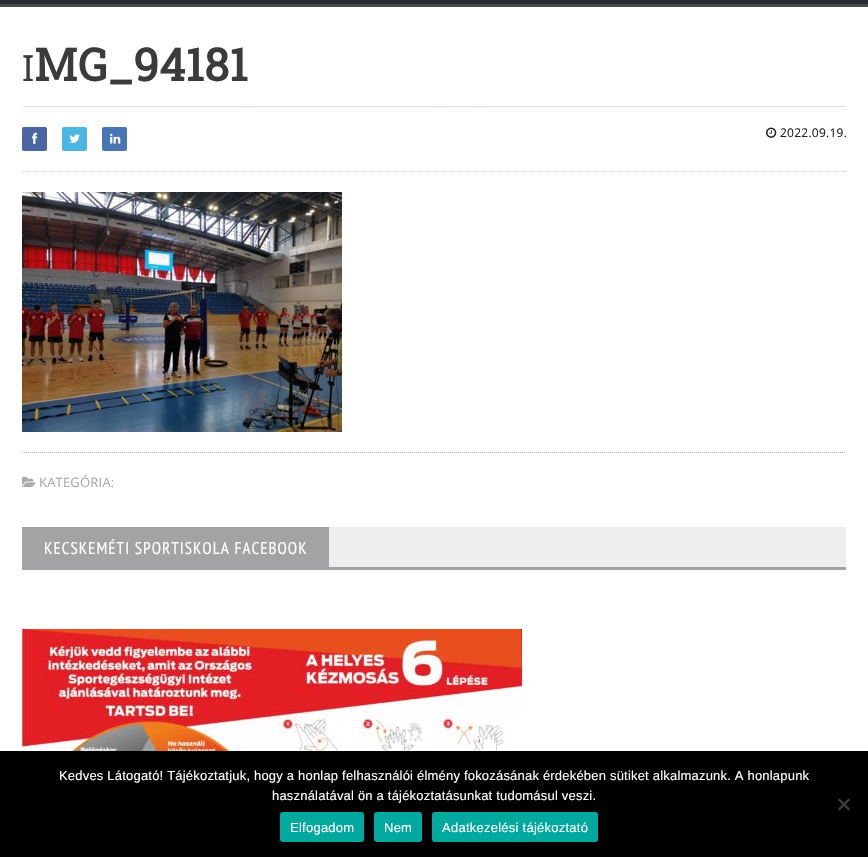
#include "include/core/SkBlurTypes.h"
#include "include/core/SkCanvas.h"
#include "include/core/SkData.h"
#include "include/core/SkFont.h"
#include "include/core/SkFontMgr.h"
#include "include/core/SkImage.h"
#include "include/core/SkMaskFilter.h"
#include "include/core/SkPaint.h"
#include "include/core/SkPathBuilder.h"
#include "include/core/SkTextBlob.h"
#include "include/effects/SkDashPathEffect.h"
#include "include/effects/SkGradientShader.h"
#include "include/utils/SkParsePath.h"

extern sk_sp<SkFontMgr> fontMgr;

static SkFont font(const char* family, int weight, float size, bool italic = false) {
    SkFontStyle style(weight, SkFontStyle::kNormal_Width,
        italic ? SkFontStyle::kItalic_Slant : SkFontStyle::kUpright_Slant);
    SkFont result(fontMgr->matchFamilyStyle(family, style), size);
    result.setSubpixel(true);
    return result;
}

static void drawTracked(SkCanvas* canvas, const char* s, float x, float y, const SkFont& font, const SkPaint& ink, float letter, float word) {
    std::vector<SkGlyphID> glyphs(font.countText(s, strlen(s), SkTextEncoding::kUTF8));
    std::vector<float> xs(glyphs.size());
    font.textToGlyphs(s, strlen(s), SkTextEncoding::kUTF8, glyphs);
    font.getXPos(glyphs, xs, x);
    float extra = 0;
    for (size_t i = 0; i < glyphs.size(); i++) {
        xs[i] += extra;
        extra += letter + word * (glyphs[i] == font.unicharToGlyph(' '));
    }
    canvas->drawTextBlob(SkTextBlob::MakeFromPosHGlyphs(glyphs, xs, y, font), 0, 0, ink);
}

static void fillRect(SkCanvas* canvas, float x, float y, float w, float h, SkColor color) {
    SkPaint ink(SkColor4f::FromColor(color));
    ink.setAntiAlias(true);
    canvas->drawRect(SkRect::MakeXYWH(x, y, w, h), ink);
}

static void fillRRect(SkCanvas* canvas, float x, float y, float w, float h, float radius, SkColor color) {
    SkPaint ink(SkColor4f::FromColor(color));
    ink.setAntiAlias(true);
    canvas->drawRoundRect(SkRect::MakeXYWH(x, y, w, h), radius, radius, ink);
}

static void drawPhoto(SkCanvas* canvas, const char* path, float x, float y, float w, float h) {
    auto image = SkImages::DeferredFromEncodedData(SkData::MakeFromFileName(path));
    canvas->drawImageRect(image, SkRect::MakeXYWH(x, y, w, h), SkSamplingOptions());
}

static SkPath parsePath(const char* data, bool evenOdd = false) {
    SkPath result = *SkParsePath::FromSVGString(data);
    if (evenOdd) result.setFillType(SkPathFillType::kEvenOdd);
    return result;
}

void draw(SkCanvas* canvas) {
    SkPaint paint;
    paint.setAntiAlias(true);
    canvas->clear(0xFFFFFFFF);
    fillRect(canvas, 0, 0, 868, 4, 0xFF292A32);
    fillRect(canvas, 0, 4, 868, 3, 0xFF494A51);
    SkFont font1 = font("Noto Sans", 400, 36);
    paint.setColor(0xFF3B3B3B);
    drawTracked(canvas, "I", 22, 81, font1, paint, 0.25f, 0);
    SkFont font2 = font("Roboto Slab", 700, 45);
    drawTracked(canvas, "MG_94181", 34, 81, font2, paint, 0.25f, 0);
    paint.setStroke(true);
    paint.setStrokeWidth(1);
    paint.setColor(0xFFCCCCCC);
    paint.setPathEffect(SkDashPathEffect::Make({{1, 1}}, 0));
    canvas->drawPath(parsePath("M22 106.5H846"), paint);
    paint.setPathEffect(nullptr);
    paint.setPathEffect(SkDashPathEffect::Make({{1, 1}}, 0));
    canvas->drawPath(parsePath("M22 171.5H846"), paint);
    paint.setPathEffect(nullptr);
    fillRRect(canvas, 22, 127, 25, 24, 2, 0xFF4C66A4);
    drawPhoto(canvas, "assets/img1.png", 32, 132, 6, 12);
    fillRRect(canvas, 62, 127, 25, 24, 2, 0xFF4CB6E2);
    drawPhoto(canvas, "assets/img2.png", 69, 134, 11, 9);
    fillRRect(canvas, 102, 127, 25, 24, 2, 0xFF4875B4);
    drawPhoto(canvas, "assets/img3.png", 110, 133, 11, 11);
    drawPhoto(canvas, "assets/img4.png", 766, 127, 11, 11);
    SkFont font3 = font("Open Sans", 400, 12);
    paint.setStroke(false);
    paint.setColor(0xFF232323);
    drawTracked(canvas, "2022.09.19.", 780, 137, font3, paint, 0.25f, 0);
    drawPhoto(canvas, "assets/img5.png", 22, 192, 320, 240);
    paint.setStroke(true);
    paint.setColor(0xFFAAAAAA);
    paint.setPathEffect(SkDashPathEffect::Make({{1, 1}}, 0));
    canvas->drawPath(parsePath("M22 452.5H846"), paint);
    paint.setPathEffect(nullptr);
    drawPhoto(canvas, "assets/img6.png", 22, 476, 14, 11);
    SkFont font4 = font("Open Sans", 400, 13);
    paint.setStroke(false);
    drawTracked(canvas, "KATEGÓRIA:", 39, 487, font4, paint, 0.2f, 0);
    fillRect(canvas, 329, 527, 517, 40, 0xFFEDEDED);
    fillRect(canvas, 22, 527, 307, 40, 0xFFA3A3A6);
    SkFont font5 = font("PT Sans Narrow", 400, 17);
    paint.setColor(0xFFFFFFFF);
    drawTracked(canvas, "KECSKEMÉTI SPORTISKOLA FACEBOOK", 44, 554, font5, paint, 1, 0);
    fillRect(canvas, 22, 567, 824, 3, 0xFFA3A3A6);
    drawPhoto(canvas, "assets/img7.png", 22, 629, 500, 122);
    fillRect(canvas, 0, 751, 868, 106, 0xFF000000);
    SkFont font6 = font("Liberation Sans", 400, 13);
    drawTracked(canvas, "Kedves Látogató! Tájékoztatjuk, hogy a honlap felhasználói élmény fokozásának érdekében sütiket alkalmazunk. A honlapunk", 59, 780, font6, paint, 0.2f, 0);
    drawTracked(canvas, "használatával ön a tájékoztatásunkat tudomásul veszi.", 272, 800, font6, paint, 0.2f, 0);
    paint.setColor(0xFF404040);
    canvas->drawPath(parsePath("M848.5 798.5L850 800L839.5 810.5L838 809Z"), paint);
    canvas->drawPath(parsePath("M838 800L839.5 798.5L850 809L848.5 810.5Z"), paint);
    fillRRect(canvas, 280, 812, 84, 30, 3, 0xFF00A99D);
    paint.setColor(0xFFFFFFFF);
    drawTracked(canvas, "Elfogadom", 290, 832, font6, paint, 0.25f, 0);
    fillRRect(canvas, 374, 812, 48, 30, 3, 0xFF00A99D);
    drawTracked(canvas, "Nem", 384, 832, font6, paint, 0.25f, 0);
    fillRRect(canvas, 432, 812, 166, 30, 3, 0xFF00A99D);
    drawTracked(canvas, "Adatkezelési tájékoztató", 442, 832, font6, paint, 0.25f, 0);
}
